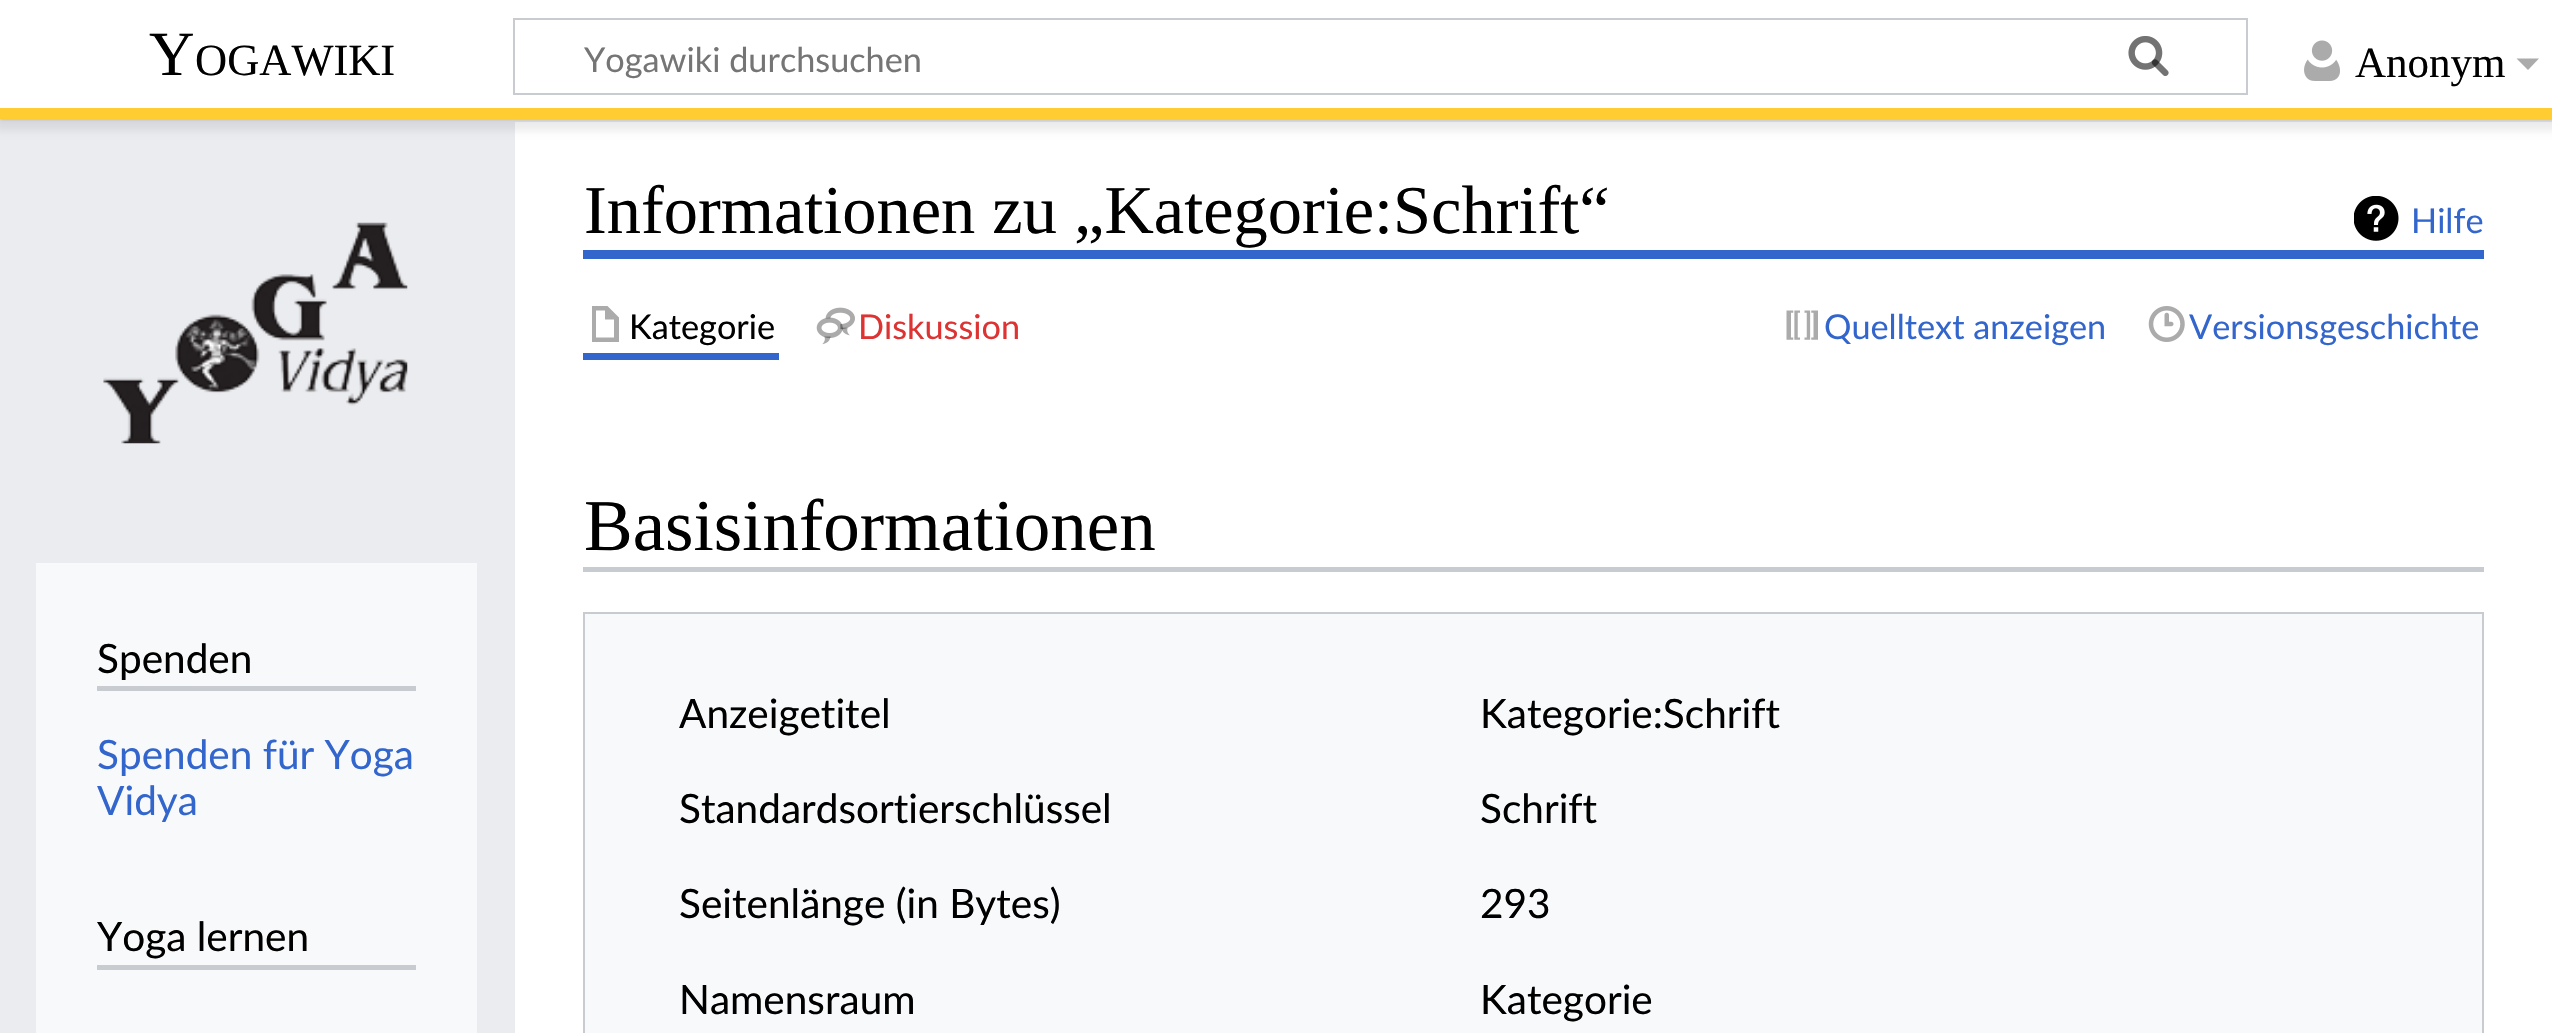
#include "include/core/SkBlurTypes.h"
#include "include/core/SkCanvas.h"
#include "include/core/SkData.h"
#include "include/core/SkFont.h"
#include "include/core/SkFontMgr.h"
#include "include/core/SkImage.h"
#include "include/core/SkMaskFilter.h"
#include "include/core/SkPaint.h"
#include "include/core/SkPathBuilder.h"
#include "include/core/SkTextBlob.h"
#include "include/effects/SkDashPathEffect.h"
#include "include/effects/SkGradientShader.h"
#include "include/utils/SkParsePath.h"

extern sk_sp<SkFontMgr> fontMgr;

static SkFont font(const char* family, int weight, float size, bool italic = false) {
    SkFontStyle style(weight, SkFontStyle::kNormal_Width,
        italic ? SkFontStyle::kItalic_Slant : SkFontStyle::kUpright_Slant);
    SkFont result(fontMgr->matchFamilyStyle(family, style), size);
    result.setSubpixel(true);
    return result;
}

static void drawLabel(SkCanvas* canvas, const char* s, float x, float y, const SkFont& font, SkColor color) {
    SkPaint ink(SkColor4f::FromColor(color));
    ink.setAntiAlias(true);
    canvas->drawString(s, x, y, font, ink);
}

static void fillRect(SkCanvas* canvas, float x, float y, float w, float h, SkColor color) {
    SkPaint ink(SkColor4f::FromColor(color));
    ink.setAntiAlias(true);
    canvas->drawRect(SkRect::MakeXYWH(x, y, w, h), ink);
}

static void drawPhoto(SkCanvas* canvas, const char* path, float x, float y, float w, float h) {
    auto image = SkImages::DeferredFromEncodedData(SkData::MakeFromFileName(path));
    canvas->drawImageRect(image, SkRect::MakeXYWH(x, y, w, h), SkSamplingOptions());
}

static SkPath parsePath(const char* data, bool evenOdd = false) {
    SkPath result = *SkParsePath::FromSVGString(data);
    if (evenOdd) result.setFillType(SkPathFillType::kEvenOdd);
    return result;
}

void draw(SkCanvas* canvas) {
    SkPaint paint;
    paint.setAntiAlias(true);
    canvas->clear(0xFFEAECF0);
    fillRect(canvas, 515, 122, 2037, 911, 0xFFFFFFFF);
    paint.setColor(0x33000000);
    paint.setMaskFilter(SkMaskFilter::MakeBlur(kNormal_SkBlurStyle, 2));
    canvas->drawRect(SkRect::MakeXYWH(0, 108, 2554, 11), paint);
    paint.setMaskFilter(nullptr);
    paint.setColor(0x12000000);
    paint.setMaskFilter(SkMaskFilter::MakeBlur(kNormal_SkBlurStyle, 3.5f));
    canvas->drawRect(SkRect::MakeXYWH(-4, 110, 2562, 21), paint);
    paint.setMaskFilter(nullptr);
    fillRect(canvas, 0, 0, 2552, 108, 0xFFFFFFFF);
    SkFont font1 = font("Liberation Serif", 400, 63);
    drawLabel(canvas, "Y", 149, 75, font1, 0xFF000000);
    SkFont font2 = font("Liberation Serif", 400, 44.5f);
    drawLabel(canvas, "OGAWIKI", 195, 75, font2, 0xFF000000);
    paint.setStroke(true);
    paint.setStrokeWidth(2);
    paint.setColor(0xFFC8CCD1);
    canvas->drawRect(SkRect::MakeXYWH(514, 19, 1733, 75), paint);
    drawPhoto(canvas, "assets/img1.png", 2128, 36, 41, 40);
    SkFont font3 = font("Lato", 400, 34.25f);
    drawLabel(canvas, "Yogawiki durchsuchen", 584, 72, font3, 0xFF757575);
    drawPhoto(canvas, "assets/img2.png", 2128, 36, 41, 40);
    drawPhoto(canvas, "assets/img3.png", 2304, 40, 36, 41);
    SkFont font4 = font("Liberation Serif", 400, 43);
    drawLabel(canvas, "Anonym", 2355, 77, font4, 0xFF000000);
    paint.setStroke(false);
    paint.setColor(0xFFABABAB);
    canvas->drawPath(parsePath("M2539 58.5L2528 70L2516.5 58.5Z"), paint);
    fillRect(canvas, 0, 108, 2552, 11, 0xFFFFCC32);
    drawPhoto(canvas, "assets/img4.png", 103, 222, 305, 222);
    fillRect(canvas, 36, 563, 441, 470, 0xFFF8F9FA);
    fillRect(canvas, 97, 686, 319, 5, 0xFFC8CCD1);
    SkFont font5 = font("Lato", 400, 40.5f);
    drawLabel(canvas, "Spenden", 97, 673, font5, 0xFF000000);
    drawLabel(canvas, "Spenden für Yoga", 97, 769, font5, 0xFF3366CC);
    drawLabel(canvas, "Vidya", 97, 815, font5, 0xFF3366CC);
    fillRect(canvas, 97, 965, 319, 5, 0xFFC8CCD1);
    drawLabel(canvas, "Yoga lernen", 97, 951, font5, 0xFF000000);
    fillRect(canvas, 583, 250, 1901, 9, 0xFF3366CC);
    SkFont font6 = font("Liberation Serif", 400, 68.4f);
    drawLabel(canvas, "Informationen zu „Kategorie:Schrift“", 584, 233, font6, 0xFF000000);
    drawPhoto(canvas, "assets/img5.png", 2354, 196, 45, 45);
    drawLabel(canvas, "Hilfe", 2411, 233, font3, 0xFF3366CC);
    fillRect(canvas, 583, 353, 196, 7, 0xFF3366CC);
    canvas->drawPath(parsePath("M592 306V342H619V317.5L607.5 306ZM596 310.5H605V319.5H614V337.5H596Z"), paint);
    drawLabel(canvas, "Kategorie", 629, 339, font3, 0xFF000000);
    drawPhoto(canvas, "assets/img6.png", 816, 307, 39, 38);
    drawLabel(canvas, "Diskussion", 858, 339, font3, 0xFFDD3333);
    drawPhoto(canvas, "assets/img7.png", 1786, 310, 32, 30);
    drawLabel(canvas, "Quelltext anzeigen", 1824, 339, font3, 0xFF3366CC);
    drawPhoto(canvas, "assets/img8.png", 2148, 306, 37, 36);
    drawLabel(canvas, "Versionsgeschichte", 2189, 339, font3, 0xFF3366CC);
    fillRect(canvas, 583, 567, 1901, 5, 0xFFC8CCD1);
    SkFont font7 = font("Liberation Serif", 400, 73);
    drawLabel(canvas, "Basisinformationen", 584, 550, font7, 0xFF000000);
    fillRect(canvas, 585, 614, 1897, 419, 0xFFF8F9FA);
    fillRect(canvas, 583, 612, 1901, 2, 0xFFC8CCD1);
    fillRect(canvas, 2482, 612, 2, 421, 0xFFC8CCD1);
    fillRect(canvas, 583, 612, 2, 421, 0xFFC8CCD1);
    drawLabel(canvas, "Anzeigetitel", 679, 728, font5, 0xFF000000);
    drawLabel(canvas, "Kategorie:Schrift", 1480, 728, font5, 0xFF000000);
    drawLabel(canvas, "Standardsortierschlüssel", 679, 823, font5, 0xFF000000);
    drawLabel(canvas, "Schrift", 1480, 823, font5, 0xFF000000);
    drawLabel(canvas, "Seitenlänge (in Bytes)", 679, 918, font5, 0xFF000000);
    drawLabel(canvas, "293", 1480, 918, font5, 0xFF000000);
    drawLabel(canvas, "Namensraum", 679, 1014, font5, 0xFF000000);
    drawLabel(canvas, "Kategorie", 1480, 1014, font5, 0xFF000000);
}
